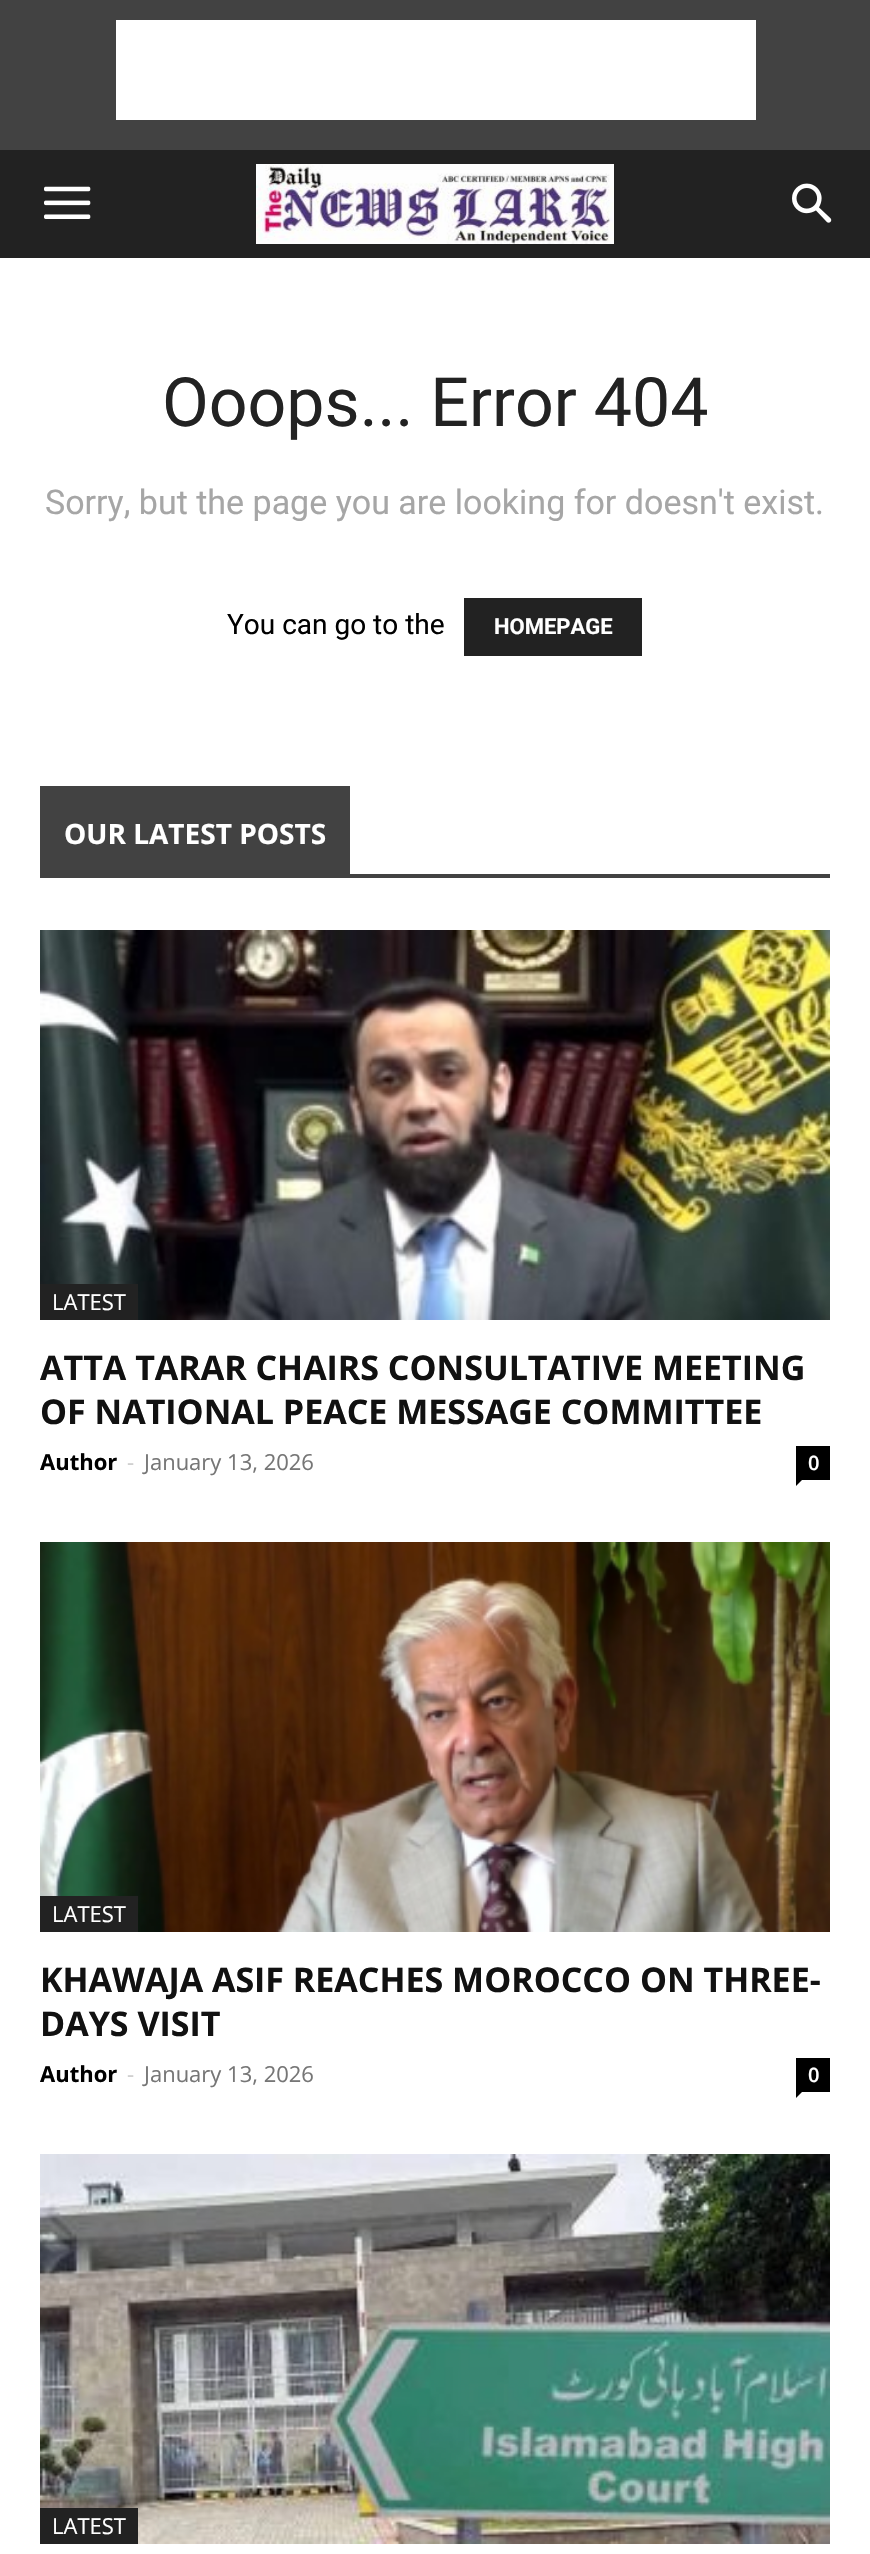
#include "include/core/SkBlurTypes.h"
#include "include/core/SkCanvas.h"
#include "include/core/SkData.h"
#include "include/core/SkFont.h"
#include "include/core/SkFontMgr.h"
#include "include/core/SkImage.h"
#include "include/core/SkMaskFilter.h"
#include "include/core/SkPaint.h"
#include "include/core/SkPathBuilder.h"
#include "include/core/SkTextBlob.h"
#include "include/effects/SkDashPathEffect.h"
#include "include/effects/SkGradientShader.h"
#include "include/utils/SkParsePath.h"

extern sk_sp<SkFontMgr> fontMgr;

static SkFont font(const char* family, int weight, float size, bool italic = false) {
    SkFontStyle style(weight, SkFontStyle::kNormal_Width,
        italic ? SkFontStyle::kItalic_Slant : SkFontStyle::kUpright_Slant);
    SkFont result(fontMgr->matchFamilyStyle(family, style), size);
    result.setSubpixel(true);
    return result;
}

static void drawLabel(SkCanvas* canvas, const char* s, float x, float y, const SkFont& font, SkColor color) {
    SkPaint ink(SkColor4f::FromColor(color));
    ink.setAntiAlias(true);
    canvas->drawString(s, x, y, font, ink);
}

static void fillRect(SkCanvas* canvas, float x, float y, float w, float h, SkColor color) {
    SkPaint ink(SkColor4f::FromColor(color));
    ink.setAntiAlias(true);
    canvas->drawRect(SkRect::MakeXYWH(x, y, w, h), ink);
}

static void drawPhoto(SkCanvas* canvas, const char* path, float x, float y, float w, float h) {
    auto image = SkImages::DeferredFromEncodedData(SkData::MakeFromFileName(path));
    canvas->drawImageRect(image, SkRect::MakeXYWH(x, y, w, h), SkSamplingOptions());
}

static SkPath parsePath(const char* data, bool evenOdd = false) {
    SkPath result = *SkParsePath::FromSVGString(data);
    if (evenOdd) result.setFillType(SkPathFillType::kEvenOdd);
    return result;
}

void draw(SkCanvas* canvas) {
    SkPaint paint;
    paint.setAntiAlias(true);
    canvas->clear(0xFFFFFFFF);
    fillRect(canvas, 0, 0, 870, 150, 0xFF424242);
    fillRect(canvas, 116, 20, 640, 100, 0xFFFFFFFF);
    fillRect(canvas, 0, 150, 870, 108, 0xFF222222);
    drawPhoto(canvas, "assets/img1.png", 44, 186, 47, 33);
    drawPhoto(canvas, "assets/img2.png", 256, 164, 358, 80);
    drawPhoto(canvas, "assets/img3.png", 792, 183, 40, 40);
    SkFont font1 = font("Roboto", 400, 68);
    drawLabel(canvas, "Ooops... Error 404", 162, 426, font1, 0xFF222222);
    SkFont font2 = font("Roboto", 400, 34);
    drawLabel(canvas, "Sorry, but the page you are looking for doesn't exist.", 45, 514, font2, 0xFFA6A6A6);
    SkFont font3 = font("Roboto", 400, 28);
    drawLabel(canvas, "You can go to the", 227, 634, font3, 0xFF000000);
    fillRect(canvas, 464, 598, 178, 58, 0xFF222222);
    SkFont font4 = font("Roboto", 700, 22);
    drawLabel(canvas, "HOMEPAGE", 494, 634, font4, 0xFFFFFFFF);
    fillRect(canvas, 40, 874, 790, 4, 0xFF424242);
    fillRect(canvas, 40, 786, 310, 88, 0xFF424242);
    SkFont font5 = font("Open Sans", 700, 28);
    drawLabel(canvas, "OUR LATEST POSTS", 64, 844, font5, 0xFFFFFFFF);
    drawPhoto(canvas, "assets/img4.png", 40, 930, 790, 390);
    fillRect(canvas, 40, 1284, 98, 36, 0xFF222222);
    SkFont font6 = font("Open Sans", 400, 22);
    drawLabel(canvas, "LATEST", 52, 1310, font6, 0xFFFFFFFF);
    SkFont font7 = font("Open Sans", 700, 34);
    drawLabel(canvas, "ATTA TARAR CHAIRS CONSULTATIVE MEETING", 40, 1380, font7, 0xFF111111);
    drawLabel(canvas, "OF NATIONAL PEACE MESSAGE COMMITTEE", 40, 1424, font7, 0xFF111111);
    SkFont font8 = font("Open Sans", 700, 22);
    drawLabel(canvas, "Author", 40, 1470, font8, 0xFF000000);
    drawLabel(canvas, "-", 127, 1470, font6, 0xFFCCCCCC);
    drawLabel(canvas, "January 13, 2026", 144, 1470, font6, 0xFF767676);
    fillRect(canvas, 796, 1446, 34, 34, 0xFF000000);
    SkFont font9 = font("Open Sans", 600, 20);
    drawLabel(canvas, "0", 808, 1470, font9, 0xFFFFFFFF);
    paint.setColor(0xFF000000);
    canvas->drawPath(parsePath("M796 1480H802L796 1486Z"), paint);
    drawPhoto(canvas, "assets/img5.png", 40, 1542, 790, 390);
    fillRect(canvas, 40, 1896, 98, 36, 0xFF222222);
    drawLabel(canvas, "LATEST", 52, 1922, font6, 0xFFFFFFFF);
    drawLabel(canvas, "KHAWAJA ASIF REACHES MOROCCO ON THREE-", 40, 1992, font7, 0xFF111111);
    drawLabel(canvas, "DAYS VISIT", 40, 2036, font7, 0xFF111111);
    drawLabel(canvas, "Author", 40, 2082, font8, 0xFF000000);
    drawLabel(canvas, "-", 127, 2082, font6, 0xFFCCCCCC);
    drawLabel(canvas, "January 13, 2026", 144, 2082, font6, 0xFF767676);
    fillRect(canvas, 796, 2058, 34, 34, 0xFF000000);
    drawLabel(canvas, "0", 808, 2082, font9, 0xFFFFFFFF);
    canvas->drawPath(parsePath("M796 2092H802L796 2098Z"), paint);
    drawPhoto(canvas, "assets/img6.png", 40, 2154, 790, 390);
    fillRect(canvas, 40, 2508, 98, 36, 0xFF222222);
    drawLabel(canvas, "LATEST", 52, 2534, font6, 0xFFFFFFFF);
}
